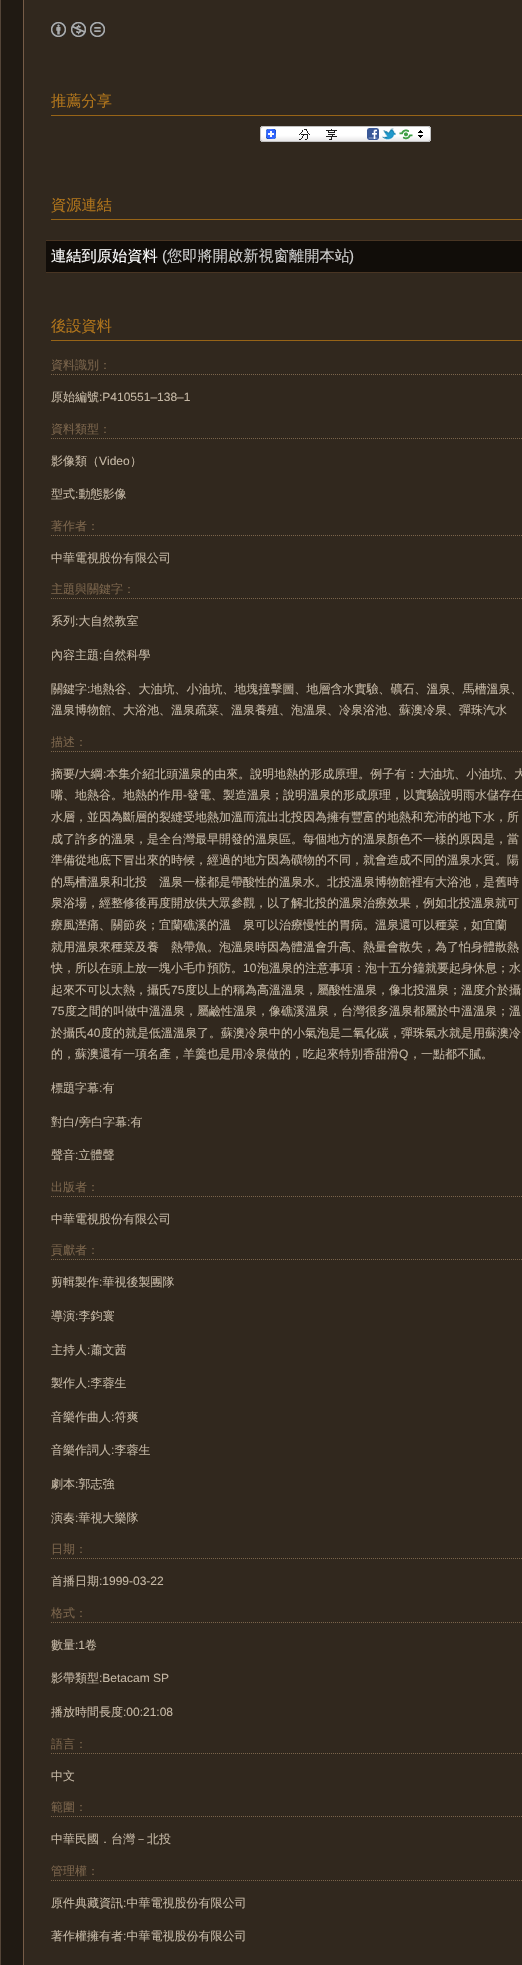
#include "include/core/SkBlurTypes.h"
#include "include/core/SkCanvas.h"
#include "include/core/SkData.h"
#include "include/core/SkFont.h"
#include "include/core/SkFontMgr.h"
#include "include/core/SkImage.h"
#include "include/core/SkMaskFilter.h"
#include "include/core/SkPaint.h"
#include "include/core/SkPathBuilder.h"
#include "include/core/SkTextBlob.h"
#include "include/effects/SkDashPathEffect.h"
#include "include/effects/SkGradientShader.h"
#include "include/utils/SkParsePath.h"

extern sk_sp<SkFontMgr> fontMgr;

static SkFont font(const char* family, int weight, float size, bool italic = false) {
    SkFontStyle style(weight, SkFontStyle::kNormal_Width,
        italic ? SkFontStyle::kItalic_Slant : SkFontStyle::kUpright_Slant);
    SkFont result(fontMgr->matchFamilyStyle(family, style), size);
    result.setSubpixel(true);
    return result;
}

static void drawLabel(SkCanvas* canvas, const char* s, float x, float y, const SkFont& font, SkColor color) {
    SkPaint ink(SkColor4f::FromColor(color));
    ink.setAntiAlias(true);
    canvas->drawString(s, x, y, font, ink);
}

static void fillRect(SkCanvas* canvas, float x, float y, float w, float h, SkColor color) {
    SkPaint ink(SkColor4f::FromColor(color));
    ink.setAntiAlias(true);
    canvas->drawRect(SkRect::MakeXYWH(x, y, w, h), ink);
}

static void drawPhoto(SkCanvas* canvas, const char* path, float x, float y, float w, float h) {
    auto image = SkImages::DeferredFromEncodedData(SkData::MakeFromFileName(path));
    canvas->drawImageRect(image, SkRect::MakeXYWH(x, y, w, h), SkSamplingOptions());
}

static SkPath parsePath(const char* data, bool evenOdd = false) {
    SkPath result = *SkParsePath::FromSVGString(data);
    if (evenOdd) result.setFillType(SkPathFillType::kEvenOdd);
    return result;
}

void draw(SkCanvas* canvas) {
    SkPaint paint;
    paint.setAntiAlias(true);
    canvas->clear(0xFF201A13);
    fillRect(canvas, 0, 0, 1, 1965, 0xFF544538);
    paint.setColor(0xFF31281E);
    canvas->drawRect(SkRect::MakeXYWH(23.5f, -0.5f, 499, 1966), paint);
    paint.setStroke(true);
    paint.setStrokeWidth(1);
    paint.setColor(0xFF765C47);
    canvas->drawRect(SkRect::MakeXYWH(23.5f, -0.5f, 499, 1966), paint);
    drawPhoto(canvas, "assets/img1.png", 51, 22, 15, 15);
    drawPhoto(canvas, "assets/img2.png", 71, 22, 15, 15);
    drawPhoto(canvas, "assets/img3.png", 90, 22, 15, 15);
    fillRect(canvas, 51, 115, 471, 1, 0xFF976417);
    SkFont font1 = font("WenQuanYi Zen Hei", 500, 15.25f);
    drawLabel(canvas, "推薦分享", 51, 106, font1, 0xFFAF741B);
    drawPhoto(canvas, "assets/img4.png", 260, 126, 171, 16);
    fillRect(canvas, 51, 219, 471, 1, 0xFF976417);
    drawLabel(canvas, "資源連結", 51, 210, font1, 0xFFAF741B);
    fillRect(canvas, 46, 241, 476, 31, 0xFF110D09);
    fillRect(canvas, 46, 240, 476, 1, 0xFF493523);
    fillRect(canvas, 46, 272, 476, 1, 0xFF493523);
    drawLabel(canvas, "連結到原始資料", 51, 261, font1, 0xFFFFFFFF);
    SkFont font2 = font("Liberation Sans", 400, 15.25f);
    drawLabel(canvas, "(", 162, 261, font2, 0xFFCCCCCC);
    drawLabel(canvas, "您即將開啟新視窗離開本站", 167, 261, font1, 0xFFCCCCCC);
    drawLabel(canvas, ")", 349, 261, font2, 0xFFCCCCCC);
    fillRect(canvas, 51, 340, 471, 1, 0xFF976417);
    drawLabel(canvas, "後設資料", 51, 331, font1, 0xFFAF741B);
    paint.setColor(0xFF7A644B);
    paint.setPathEffect(SkDashPathEffect::Make({{1, 1}}, 0));
    canvas->drawPath(parsePath("M51 374.5H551"), paint);
    paint.setPathEffect(nullptr);
    SkFont font3 = font("WenQuanYi Zen Hei", 500, 12);
    drawLabel(canvas, "資料識別：", 51, 369, font3, 0xFF7A644B);
    drawLabel(canvas, "原始編號", 51, 401, font3, 0xFFC4B7A4);
    SkFont font4 = font("Liberation Sans", 400, 12);
    drawLabel(canvas, ":P410551–138–1", 99, 401, font4, 0xFFC4B7A4);
    paint.setPathEffect(SkDashPathEffect::Make({{1, 1}}, 0));
    canvas->drawPath(parsePath("M51 438.5H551"), paint);
    paint.setPathEffect(nullptr);
    drawLabel(canvas, "資料類型：", 51, 433, font3, 0xFF7A644B);
    drawLabel(canvas, "影像類（", 51, 465, font3, 0xFFC4B7A4);
    drawLabel(canvas, "Video", 99, 465, font4, 0xFFC4B7A4);
    drawLabel(canvas, "）", 130, 465, font3, 0xFFC4B7A4);
    drawLabel(canvas, "型式 動態影像", 51, 498, font3, 0xFFC4B7A4);
    drawLabel(canvas, ":", 75, 498, font4, 0xFFC4B7A4);
    paint.setPathEffect(SkDashPathEffect::Make({{1, 1}}, 0));
    canvas->drawPath(parsePath("M51 535.5H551"), paint);
    paint.setPathEffect(nullptr);
    drawLabel(canvas, "著作者：", 51, 530, font3, 0xFF7A644B);
    drawLabel(canvas, "中華電視股份有限公司", 51, 562, font3, 0xFFC4B7A4);
    paint.setPathEffect(SkDashPathEffect::Make({{1, 1}}, 0));
    canvas->drawPath(parsePath("M51 598.5H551"), paint);
    paint.setPathEffect(nullptr);
    drawLabel(canvas, "主題與關鍵字：", 51, 593, font3, 0xFF7A644B);
    drawLabel(canvas, "系列 大自然教室", 51, 625, font3, 0xFFC4B7A4);
    drawLabel(canvas, ":", 75, 625, font4, 0xFFC4B7A4);
    drawLabel(canvas, "內容主題 自然科學", 51, 659, font3, 0xFFC4B7A4);
    drawLabel(canvas, ":", 99, 659, font4, 0xFFC4B7A4);
    drawLabel(canvas, "關鍵字 地熱谷、大油坑、小油坑、地塊撞擊圖、地層含水實驗、礦石、溫泉、馬槽溫泉、", 51, 693, font3, 0xFFC4B7A4);
    drawLabel(canvas, ":", 87, 693, font4, 0xFFC4B7A4);
    drawLabel(canvas, "溫泉博物館、大浴池、溫泉疏菜、溫泉養殖、泡溫泉、冷泉浴池、蘇澳冷泉、彈珠汽水", 51, 714, font3, 0xFFC4B7A4);
    paint.setPathEffect(SkDashPathEffect::Make({{1, 1}}, 0));
    canvas->drawPath(parsePath("M51 751.5H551"), paint);
    paint.setPathEffect(nullptr);
    drawLabel(canvas, "描述：", 51, 746, font3, 0xFF7A644B);
    drawLabel(canvas, "摘要 大綱 本集介紹北頭溫泉的由來。說明地熱的形成原理。例子有：大油坑、小油坑、大", 51, 778, font3, 0xFFC4B7A4);
    drawLabel(canvas, "/", 75, 778, font4, 0xFFC4B7A4);
    drawLabel(canvas, ":", 103, 778, font4, 0xFFC4B7A4);
    drawLabel(canvas, "嘴、地熱谷。地熱的作用", 51, 799, font3, 0xFFC4B7A4);
    drawLabel(canvas, "-", 183, 799, font4, 0xFFC4B7A4);
    drawLabel(canvas, "發電、製造溫泉；說明溫泉的形成原理，以實驗說明雨水儲存在", 187, 799, font3, 0xFFC4B7A4);
    drawLabel(canvas, "水層，並因為斷層的裂縫受地熱加溫而流出北投因為擁有豐富的地熱和充沛的地下水，所", 51, 821, font3, 0xFFC4B7A4);
    drawLabel(canvas, "成了許多的溫泉，是全台灣最早開發的溫泉區。每個地方的溫泉顏色不一樣的原因是，當", 51, 843, font3, 0xFFC4B7A4);
    drawLabel(canvas, "準備從地底下冒出來的時候，經過的地方因為礦物的不同，就會造成不同的溫泉水質。陽", 51, 864, font3, 0xFFC4B7A4);
    drawLabel(canvas, "的馬槽溫泉和北投　溫泉一樣都是帶酸性的溫泉水。北投溫泉博物館裡有大浴池，是舊時", 51, 886, font3, 0xFFC4B7A4);
    drawLabel(canvas, "泉浴場，經整修後再度開放供大眾參觀，以了解北投的溫泉治療效果，例如北投溫泉就可", 51, 907, font3, 0xFFC4B7A4);
    drawLabel(canvas, "療風溼痛、關節炎；宜蘭礁溪的溫　泉可以治療慢性的胃病。溫泉還可以種菜，如宜蘭", 51, 929, font3, 0xFFC4B7A4);
    drawLabel(canvas, "就用溫泉來種菜及養　熱帶魚。泡溫泉時因為體溫會升高、熱量會散失，為了怕身體散熱", 51, 951, font3, 0xFFC4B7A4);
    drawLabel(canvas, "快，所以在頭上放一塊小毛巾預防。", 51, 972, font3, 0xFFC4B7A4);
    drawLabel(canvas, "10", 243, 972, font4, 0xFFC4B7A4);
    drawLabel(canvas, "泡溫泉的注意事項：泡十五分鐘就要起身休息；水", 257, 972, font3, 0xFFC4B7A4);
    drawLabel(canvas, "起來不可以太熱，攝氏", 51, 994, font3, 0xFFC4B7A4);
    drawLabel(canvas, "75", 171, 994, font4, 0xFFC4B7A4);
    drawLabel(canvas, "度以上的稱為高溫溫泉，屬酸性溫泉，像北投溫泉；溫度介於攝", 185, 994, font3, 0xFFC4B7A4);
    drawLabel(canvas, "75", 51, 1015, font4, 0xFFC4B7A4);
    drawLabel(canvas, "度之間的叫做中溫溫泉，屬鹼性溫泉，像礁溪溫泉，台灣很多溫泉都屬於中溫溫泉；溫", 65, 1015, font3, 0xFFC4B7A4);
    drawLabel(canvas, "於攝氏", 51, 1037, font3, 0xFFC4B7A4);
    drawLabel(canvas, "40", 87, 1037, font4, 0xFFC4B7A4);
    drawLabel(canvas, "度的就是低溫溫泉了。蘇澳冷泉中的小氣泡是二氧化碳，彈珠氣水就是用蘇澳冷", 101, 1037, font3, 0xFFC4B7A4);
    drawLabel(canvas, "的，蘇澳還有一項名產，羊羹也是用冷泉做的，吃起來特別香甜滑", 51, 1058, font3, 0xFFC4B7A4);
    drawLabel(canvas, "Q", 399, 1058, font4, 0xFFC4B7A4);
    drawLabel(canvas, "，一點都不膩。", 409, 1058, font3, 0xFFC4B7A4);
    drawLabel(canvas, "標題字幕 有", 51, 1092, font3, 0xFFC4B7A4);
    drawLabel(canvas, ":", 99, 1092, font4, 0xFFC4B7A4);
    drawLabel(canvas, "對白", 51, 1126, font3, 0xFFC4B7A4);
    drawLabel(canvas, "/", 75, 1126, font4, 0xFFC4B7A4);
    drawLabel(canvas, "旁白字幕 有", 79, 1126, font3, 0xFFC4B7A4);
    drawLabel(canvas, ":", 127, 1126, font4, 0xFFC4B7A4);
    drawLabel(canvas, "聲音 立體聲", 51, 1159, font3, 0xFFC4B7A4);
    drawLabel(canvas, ":", 75, 1159, font4, 0xFFC4B7A4);
    paint.setPathEffect(SkDashPathEffect::Make({{1, 1}}, 0));
    canvas->drawPath(parsePath("M51 1196.5H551"), paint);
    paint.setPathEffect(nullptr);
    drawLabel(canvas, "出版者：", 51, 1191, font3, 0xFF7A644B);
    drawLabel(canvas, "中華電視股份有限公司", 51, 1223, font3, 0xFFC4B7A4);
    paint.setPathEffect(SkDashPathEffect::Make({{1, 1}}, 0));
    canvas->drawPath(parsePath("M51 1259.5H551"), paint);
    paint.setPathEffect(nullptr);
    drawLabel(canvas, "貢獻者：", 51, 1254, font3, 0xFF7A644B);
    drawLabel(canvas, "剪輯製作 華視後製團隊", 51, 1286, font3, 0xFFC4B7A4);
    drawLabel(canvas, ":", 99, 1286, font4, 0xFFC4B7A4);
    drawLabel(canvas, "導演 李鈞寰", 51, 1320, font3, 0xFFC4B7A4);
    drawLabel(canvas, ":", 75, 1320, font4, 0xFFC4B7A4);
    drawLabel(canvas, "主持人 蕭文茜", 51, 1354, font3, 0xFFC4B7A4);
    drawLabel(canvas, ":", 87, 1354, font4, 0xFFC4B7A4);
    drawLabel(canvas, "製作人 李蓉生", 51, 1387, font3, 0xFFC4B7A4);
    drawLabel(canvas, ":", 87, 1387, font4, 0xFFC4B7A4);
    drawLabel(canvas, "音樂作曲人 符爽", 51, 1421, font3, 0xFFC4B7A4);
    drawLabel(canvas, ":", 111, 1421, font4, 0xFFC4B7A4);
    drawLabel(canvas, "音樂作詞人 李蓉生", 51, 1454, font3, 0xFFC4B7A4);
    drawLabel(canvas, ":", 111, 1454, font4, 0xFFC4B7A4);
    drawLabel(canvas, "劇本 郭志強", 51, 1488, font3, 0xFFC4B7A4);
    drawLabel(canvas, ":", 75, 1488, font4, 0xFFC4B7A4);
    drawLabel(canvas, "演奏 華視大樂隊", 51, 1522, font3, 0xFFC4B7A4);
    drawLabel(canvas, ":", 75, 1522, font4, 0xFFC4B7A4);
    paint.setPathEffect(SkDashPathEffect::Make({{1, 1}}, 0));
    canvas->drawPath(parsePath("M51 1558.5H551"), paint);
    paint.setPathEffect(nullptr);
    drawLabel(canvas, "日期：", 51, 1553, font3, 0xFF7A644B);
    drawLabel(canvas, "首播日期", 51, 1585, font3, 0xFFC4B7A4);
    drawLabel(canvas, ":1999-03-22", 99, 1585, font4, 0xFFC4B7A4);
    paint.setPathEffect(SkDashPathEffect::Make({{1, 1}}, 0));
    canvas->drawPath(parsePath("M51 1622.5H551"), paint);
    paint.setPathEffect(nullptr);
    drawLabel(canvas, "格式：", 51, 1617, font3, 0xFF7A644B);
    drawLabel(canvas, "數量", 51, 1649, font3, 0xFFC4B7A4);
    drawLabel(canvas, ":1", 75, 1649, font4, 0xFFC4B7A4);
    drawLabel(canvas, "卷", 85, 1649, font3, 0xFFC4B7A4);
    drawLabel(canvas, "影帶類型", 51, 1682, font3, 0xFFC4B7A4);
    drawLabel(canvas, ":Betacam SP", 99, 1682, font4, 0xFFC4B7A4);
    drawLabel(canvas, "播放時間長度", 51, 1716, font3, 0xFFC4B7A4);
    drawLabel(canvas, ":00:21:08", 123, 1716, font4, 0xFFC4B7A4);
    paint.setPathEffect(SkDashPathEffect::Make({{1, 1}}, 0));
    canvas->drawPath(parsePath("M51 1753.5H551"), paint);
    paint.setPathEffect(nullptr);
    drawLabel(canvas, "語言：", 51, 1748, font3, 0xFF7A644B);
    drawLabel(canvas, "中文", 51, 1780, font3, 0xFFC4B7A4);
    paint.setPathEffect(SkDashPathEffect::Make({{1, 1}}, 0));
    canvas->drawPath(parsePath("M51 1816.5H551"), paint);
    paint.setPathEffect(nullptr);
    drawLabel(canvas, "範圍：", 51, 1811, font3, 0xFF7A644B);
    drawLabel(canvas, "中華民國．台灣－北投", 51, 1843, font3, 0xFFC4B7A4);
    paint.setPathEffect(SkDashPathEffect::Make({{1, 1}}, 0));
    canvas->drawPath(parsePath("M51 1880.5H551"), paint);
    paint.setPathEffect(nullptr);
    drawLabel(canvas, "管理權：", 51, 1875, font3, 0xFF7A644B);
    drawLabel(canvas, "原件典藏資訊 中華電視股份有限公司", 51, 1907, font3, 0xFFC4B7A4);
    drawLabel(canvas, ":", 123, 1907, font4, 0xFFC4B7A4);
    drawLabel(canvas, "著作權擁有者 中華電視股份有限公司", 51, 1940, font3, 0xFFC4B7A4);
    drawLabel(canvas, ":", 123, 1940, font4, 0xFFC4B7A4);
}
